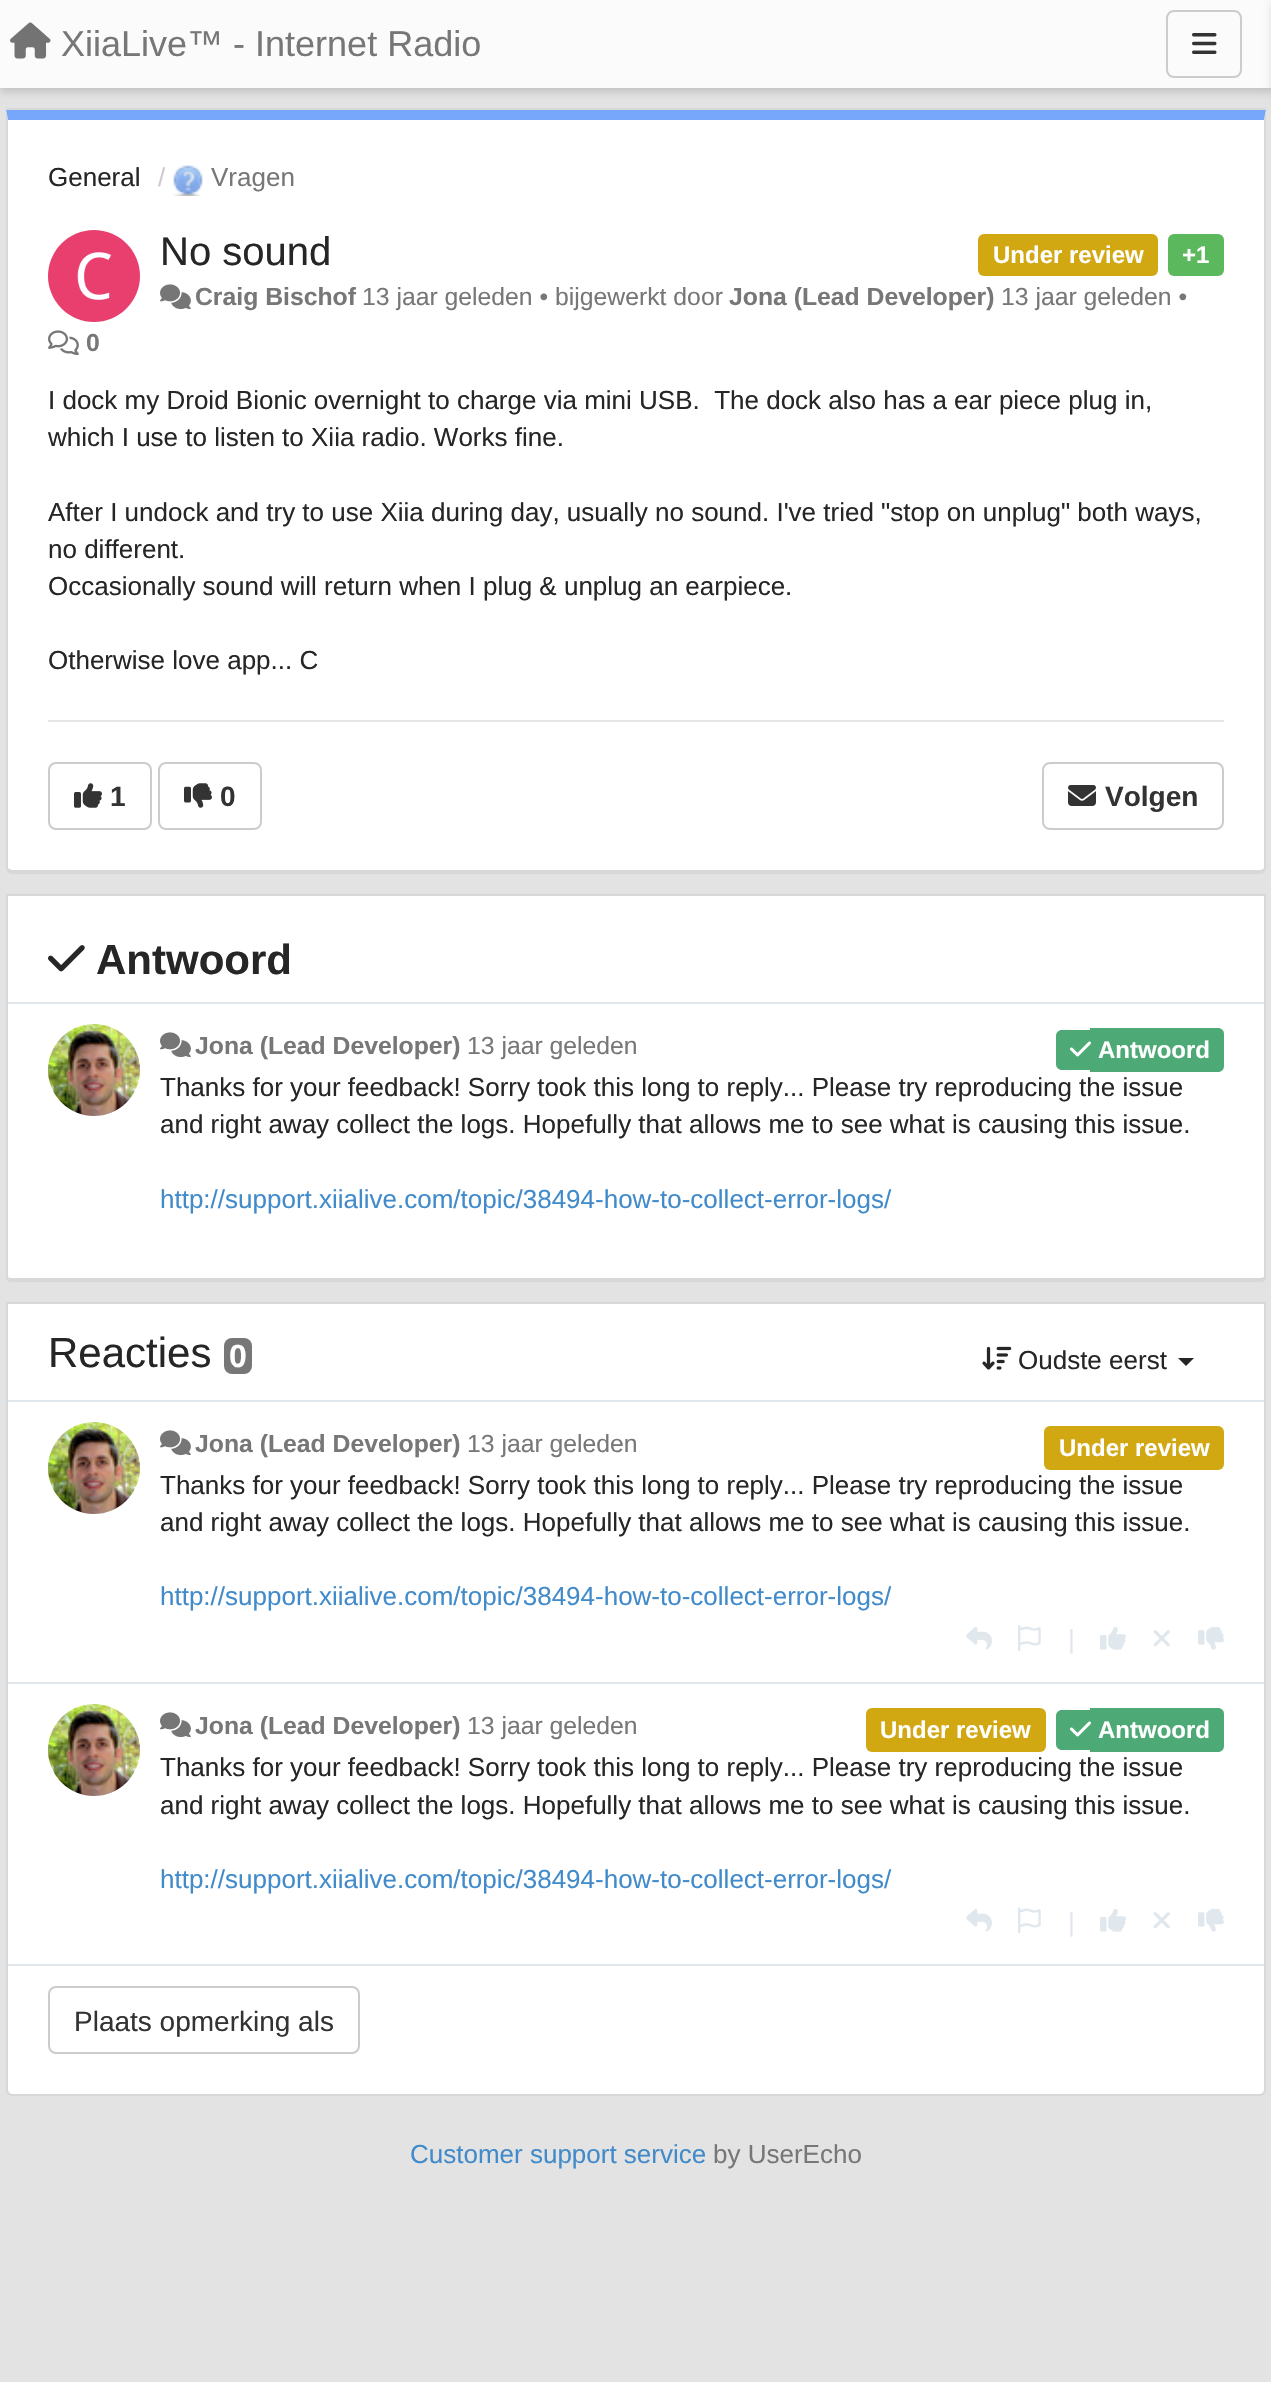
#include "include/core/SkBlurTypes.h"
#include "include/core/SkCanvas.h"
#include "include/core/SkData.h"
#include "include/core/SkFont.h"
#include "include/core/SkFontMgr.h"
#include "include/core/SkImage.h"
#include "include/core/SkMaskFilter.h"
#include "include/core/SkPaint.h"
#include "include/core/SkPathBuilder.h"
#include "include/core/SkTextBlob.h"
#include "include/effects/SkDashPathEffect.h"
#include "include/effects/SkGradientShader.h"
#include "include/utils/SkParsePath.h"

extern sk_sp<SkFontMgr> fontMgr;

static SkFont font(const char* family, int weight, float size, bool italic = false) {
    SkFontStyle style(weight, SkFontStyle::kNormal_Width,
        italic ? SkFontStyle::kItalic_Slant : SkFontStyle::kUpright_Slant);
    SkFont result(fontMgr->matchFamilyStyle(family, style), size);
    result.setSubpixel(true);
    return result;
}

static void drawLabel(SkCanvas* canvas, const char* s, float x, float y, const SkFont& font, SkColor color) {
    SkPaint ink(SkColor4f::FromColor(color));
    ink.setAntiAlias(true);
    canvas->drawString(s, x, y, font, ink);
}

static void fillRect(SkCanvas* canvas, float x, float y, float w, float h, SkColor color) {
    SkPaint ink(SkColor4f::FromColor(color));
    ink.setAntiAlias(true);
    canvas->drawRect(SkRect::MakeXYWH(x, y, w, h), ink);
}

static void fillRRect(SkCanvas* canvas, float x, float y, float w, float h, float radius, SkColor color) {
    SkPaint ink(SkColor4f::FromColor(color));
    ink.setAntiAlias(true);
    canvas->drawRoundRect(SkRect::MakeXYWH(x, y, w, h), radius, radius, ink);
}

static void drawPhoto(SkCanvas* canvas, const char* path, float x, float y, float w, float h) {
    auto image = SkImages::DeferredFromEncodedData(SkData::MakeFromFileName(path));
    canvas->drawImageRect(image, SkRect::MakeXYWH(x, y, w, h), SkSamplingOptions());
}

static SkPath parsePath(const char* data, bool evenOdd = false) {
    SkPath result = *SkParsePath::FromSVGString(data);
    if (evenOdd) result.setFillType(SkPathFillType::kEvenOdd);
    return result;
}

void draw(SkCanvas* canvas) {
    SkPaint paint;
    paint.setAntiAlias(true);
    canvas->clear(0xFFE3E3E3);
    paint.setColor(0x26000000);
    paint.setMaskFilter(SkMaskFilter::MakeBlur(kNormal_SkBlurStyle, 4));
    canvas->drawRect(SkRect::MakeXYWH(0, 4, 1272, 88), paint);
    paint.setMaskFilter(nullptr);
    fillRect(canvas, 0, 0, 1271, 88, 0xFFFBFBFB);
    drawPhoto(canvas, "assets/img1.png", 10, 22, 41, 37);
    SkFont font1 = font("Liberation Sans", 400, 36);
    drawLabel(canvas, "XiiaLive™ - Internet Radio", 61, 56, font1, 0xFF777777);
    paint.setStroke(true);
    paint.setStrokeWidth(2);
    paint.setColor(0xFFCCCCCC);
    canvas->drawRoundRect(SkRect::MakeXYWH(1167, 11, 74, 66), 7, 7, paint);
    drawPhoto(canvas, "assets/img2.png", 1192, 33, 25, 21);
    paint.setStroke(false);
    paint.setColor(0x26000000);
    paint.setMaskFilter(SkMaskFilter::MakeBlur(kNormal_SkBlurStyle, 4));
    canvas->drawRect(SkRect::MakeXYWH(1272, 4, 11, 88), paint);
    paint.setMaskFilter(nullptr);
    fillRect(canvas, 6, 108, 1260, 2, 0xFFD8D8D8);
    paint.setColor(0xFFFFFFFF);
    canvas->drawPath(parsePath("M8 120H1264V868C1264 869 1262 870 1260 870H12C10 870 8 869 8 868Z"), paint);
    paint.setColor(0xFF76A7FA);
    canvas->drawPath(parsePath("M6 110L8 120H1264L1266 110Z"), paint);
    paint.setColor(0xFFD8D8D8);
    canvas->drawPath(parsePath("M1266 110L1264 120V868L1263 869L1265 871L1266 868Z"), paint);
    canvas->drawPath(parsePath("M12 874H1260C1262 874 1264 873 1265 871L1263 869L1261 870H220H12L9 869L7 871C8 873 10 874 12 874Z"), paint);
    canvas->drawPath(parsePath("M8 120L6 110V868L7 871L9 869L8 868Z"), paint);
    SkFont font2 = font("Liberation Sans", 400, 26);
    drawLabel(canvas, "General", 48, 186, font2, 0xFF262626);
    drawLabel(canvas, "/", 158, 186, font2, 0xFFCCCCCC);
    drawPhoto(canvas, "assets/img3.png", 173, 165, 30, 31);
    drawLabel(canvas, "Vragen", 211, 186, font2, 0xFF777777);
    paint.setColor(0xFFE83F6E);
    canvas->drawCircle(94, 276, 46, paint);
    drawPhoto(canvas, "assets/img4.png", 77, 252, 35, 48);
    SkFont font3 = font("Liberation Sans", 400, 40);
    drawLabel(canvas, "No sound", 160, 265, font3, 0xFF262626);
    fillRRect(canvas, 978, 234, 180, 42, 6, 0xFFD1A712);
    SkFont font4 = font("Liberation Sans", 700, 24);
    drawLabel(canvas, "Under review", 993, 263, font4, 0xFFFFFFFF);
    fillRRect(canvas, 1168, 234, 56, 42, 6, 0xFF5CB85C);
    drawLabel(canvas, "+1", 1182, 263, font4, 0xFFFFFFFF);
    drawPhoto(canvas, "assets/img5.png", 160, 284, 31, 26);
    SkFont font5 = font("Liberation Sans", 700, 24.75f);
    drawLabel(canvas, "Craig Bischof", 195, 305, font5, 0xFF777777);
    SkFont font6 = font("Liberation Sans", 400, 24.75f);
    drawLabel(canvas, "13 jaar geleden • bijgewerkt door", 362, 305, font6, 0xFF777777);
    drawLabel(canvas, "Jona (Lead Developer)", 729, 305, font5, 0xFF777777);
    drawLabel(canvas, "13 jaar geleden •", 1001, 305, font6, 0xFF777777);
    drawPhoto(canvas, "assets/img6.png", 48, 330, 31, 26);
    drawLabel(canvas, "0", 86, 351, font5, 0xFF777777);
    drawLabel(canvas, "I dock my Droid Bionic overnight to charge via mini USB.  The dock also has a ear piece plug in,", 48, 409, font2, 0xFF262626);
    drawLabel(canvas, "which I use to listen to Xiia radio. Works fine.", 48, 446, font2, 0xFF262626);
    drawLabel(canvas, "After I undock and try to use Xiia during day, usually no sound. I've tried \"stop on unplug\" both ways,", 48, 521, font2, 0xFF262626);
    drawLabel(canvas, "no different.", 48, 558, font2, 0xFF262626);
    drawLabel(canvas, "Occasionally sound will return when I plug & unplug an earpiece.", 48, 595, font2, 0xFF262626);
    drawLabel(canvas, "Otherwise love app... C", 48, 669, font2, 0xFF262626);
    fillRect(canvas, 48, 720, 1176, 2, 0xFFE5E5E5);
    paint.setStroke(true);
    paint.setColor(0xFFCCCCCC);
    canvas->drawRoundRect(SkRect::MakeXYWH(49, 763, 102, 66), 7, 7, paint);
    drawPhoto(canvas, "assets/img7.png", 74, 783, 28, 25);
    SkFont font7 = font("Liberation Sans", 700, 28);
    drawLabel(canvas, "1", 110, 806, font7, 0xFF333333);
    canvas->drawRoundRect(SkRect::MakeXYWH(159, 763, 102, 66), 7, 7, paint);
    drawPhoto(canvas, "assets/img8.png", 184, 783, 28, 25);
    drawLabel(canvas, "0", 220, 806, font7, 0xFF333333);
    canvas->drawRoundRect(SkRect::MakeXYWH(1043, 763, 180, 66), 7, 7, paint);
    drawPhoto(canvas, "assets/img9.png", 1068, 785, 28, 21);
    drawLabel(canvas, "Volgen", 1105, 806, font7, 0xFF333333);
    paint.setStroke(false);
    paint.setColor(0xFFFFFFFF);
    canvas->drawPath(parsePath("M8 896H1264V1276C1264 1277 1262 1278 1260 1278H12C10 1278 8 1277 8 1276Z"), paint);
    paint.setStroke(true);
    paint.setColor(0xFFD8D8D8);
    canvas->drawPath(parsePath("M7 895H1265V1276C1265 1279 1263 1281 1260 1281H12C9 1281 7 1279 7 1276Z"), paint);
    fillRect(canvas, 10, 1278, 1254, 2, 0xFFD8D8D8);
    drawPhoto(canvas, "assets/img10.png", 48, 945, 37, 27);
    SkFont font8 = font("Liberation Sans", 700, 42);
    drawLabel(canvas, "Antwoord", 96, 974, font8, 0xFF262626);
    fillRect(canvas, 8, 1002, 1256, 2, 0xFFE1E8ED);
    drawPhoto(canvas, "assets/img11.png", 48, 1024, 92, 92);
    drawPhoto(canvas, "assets/img5.png", 160, 1032, 31, 26);
    drawLabel(canvas, "Jona (Lead Developer)", 195, 1054, font5, 0xFF777777);
    drawLabel(canvas, "13 jaar geleden", 467, 1054, font6, 0xFF777777);
    paint.setStroke(false);
    paint.setColor(0xFF4DAA77);
    canvas->drawPath(parsePath("M1062 1030H1090V1070H1062C1058.5 1070 1056 1067.5 1056 1064V1036C1056 1032.5 1058.5 1030 1062 1030Z"), paint);
    canvas->drawPath(parsePath("M1090 1028H1218C1221.5 1028 1224 1030.5 1224 1034V1066C1224 1069.5 1221.5 1072 1218 1072H1090Z"), paint);
    drawPhoto(canvas, "assets/img12.png", 1070, 1041, 21, 16);
    drawLabel(canvas, "Antwoord", 1098, 1058, font4, 0xFFFFFFFF);
    drawLabel(canvas, "Thanks for your feedback! Sorry took this long to reply... Please try reproducing the issue", 160, 1096, font2, 0xFF262626);
    drawLabel(canvas, "and right away collect the logs. Hopefully that allows me to see what is causing this issue.", 160, 1133, font2, 0xFF262626);
    drawLabel(canvas, "http://support.xiialive.com/topic/38494-how-to-collect-error-logs/", 160, 1208, font2, 0xFF428BCA);
    fillRect(canvas, 6, 1302, 1260, 2, 0xFFD8D8D8);
    paint.setColor(0xFFFFFFFF);
    canvas->drawPath(parsePath("M8 1304H1264V2090C1264 2092 1262 2094 1260 2094H12C10 2094 8 2092 8 2090Z"), paint);
    paint.setColor(0xFFD8D8D8);
    canvas->drawPath(parsePath("M6 1304H1266V2090C1266 2093 1263 2096 1260 2096H12C9 2096 6 2093 6 2090ZM8 1304H1264V2090C1264 2092 1262 2094 1260 2094H12C10 2094 8 2092 8 2090Z", true), paint);
    SkFont font9 = font("Liberation Sans", 400, 42);
    drawLabel(canvas, "Reacties", 48, 1367, font9, 0xFF262626);
    fillRRect(canvas, 224, 1338, 28, 36, 8, 0xFF777777);
    SkFont font10 = font("Liberation Sans", 700, 32);
    drawLabel(canvas, "0", 229, 1367, font10, 0xFFFFFFFF);
    drawPhoto(canvas, "assets/img13.png", 982, 1346, 30, 24);
    drawLabel(canvas, "Oudste eerst", 1018, 1369, font2, 0xFF262626);
    paint.setColor(0xFF262626);
    canvas->drawPath(parsePath("M1178 1358H1194L1186 1366Z"), paint);
    fillRect(canvas, 8, 1400, 1256, 2, 0xFFE1E8ED);
    fillRect(canvas, 8, 1682, 1256, 2, 0xFFE1E8ED);
    drawPhoto(canvas, "assets/img14.png", 48, 1422, 92, 92);
    drawPhoto(canvas, "assets/img5.png", 160, 1430, 31, 26);
    drawLabel(canvas, "Jona (Lead Developer)", 195, 1452, font5, 0xFF777777);
    drawLabel(canvas, "13 jaar geleden", 467, 1452, font6, 0xFF777777);
    fillRRect(canvas, 1044, 1426, 180, 44, 6, 0xFFD1A712);
    drawLabel(canvas, "Under review", 1059, 1456, font4, 0xFFFFFFFF);
    drawLabel(canvas, "Thanks for your feedback! Sorry took this long to reply... Please try reproducing the issue", 160, 1494, font2, 0xFF262626);
    drawLabel(canvas, "and right away collect the logs. Hopefully that allows me to see what is causing this issue.", 160, 1531, font2, 0xFF262626);
    drawLabel(canvas, "http://support.xiialive.com/topic/38494-how-to-collect-error-logs/", 160, 1605, font2, 0xFF428BCA);
    drawPhoto(canvas, "assets/img15.png", 966, 1627, 26, 23);
    drawPhoto(canvas, "assets/img16.png", 1018, 1625, 23, 27);
    drawLabel(canvas, "|", 1068, 1648, font2, 0xFFE1E8ED);
    drawPhoto(canvas, "assets/img17.png", 1100, 1627, 26, 23);
    drawPhoto(canvas, "assets/img18.png", 1153, 1630, 17, 17);
    drawPhoto(canvas, "assets/img19.png", 1198, 1627, 26, 23);
    fillRect(canvas, 8, 1964, 1256, 2, 0xFFE1E8ED);
    drawPhoto(canvas, "assets/img20.png", 48, 1704, 92, 92);
    drawPhoto(canvas, "assets/img5.png", 160, 1712, 31, 26);
    drawLabel(canvas, "Jona (Lead Developer)", 195, 1734, font5, 0xFF777777);
    drawLabel(canvas, "13 jaar geleden", 467, 1734, font6, 0xFF777777);
    fillRRect(canvas, 866, 1708, 180, 44, 6, 0xFFD1A712);
    drawLabel(canvas, "Under review", 880, 1738, font4, 0xFFFFFFFF);
    paint.setColor(0xFF4DAA77);
    canvas->drawPath(parsePath("M1062 1710H1090V1750H1062C1058.5 1750 1056 1747.5 1056 1744V1716C1056 1712.5 1058.5 1710 1062 1710Z"), paint);
    canvas->drawPath(parsePath("M1090 1708H1218C1221.5 1708 1224 1710.5 1224 1714V1746C1224 1749.5 1221.5 1752 1218 1752H1090Z"), paint);
    drawPhoto(canvas, "assets/img12.png", 1070, 1721, 21, 16);
    drawLabel(canvas, "Antwoord", 1098, 1738, font4, 0xFFFFFFFF);
    drawLabel(canvas, "Thanks for your feedback! Sorry took this long to reply... Please try reproducing the issue", 160, 1776, font2, 0xFF262626);
    drawLabel(canvas, "and right away collect the logs. Hopefully that allows me to see what is causing this issue.", 160, 1814, font2, 0xFF262626);
    drawLabel(canvas, "http://support.xiialive.com/topic/38494-how-to-collect-error-logs/", 160, 1888, font2, 0xFF428BCA);
    drawPhoto(canvas, "assets/img15.png", 966, 1909, 26, 23);
    drawPhoto(canvas, "assets/img16.png", 1018, 1907, 23, 27);
    drawLabel(canvas, "|", 1068, 1931, font2, 0xFFE1E8ED);
    drawPhoto(canvas, "assets/img17.png", 1100, 1909, 26, 23);
    drawPhoto(canvas, "assets/img18.png", 1153, 1912, 17, 17);
    drawPhoto(canvas, "assets/img19.png", 1198, 1909, 26, 23);
    paint.setStroke(true);
    paint.setColor(0xFFCCCCCC);
    canvas->drawRoundRect(SkRect::MakeXYWH(49, 1987, 310, 66), 7, 7, paint);
    SkFont font11 = font("Liberation Sans", 400, 28);
    drawLabel(canvas, "Plaats opmerking als", 74, 2031, font11, 0xFF333333);
    drawLabel(canvas, "Customer support service", 410, 2163, font2, 0xFF428BCA);
    drawLabel(canvas, "by UserEcho", 713, 2163, font2, 0xFF777777);
}
